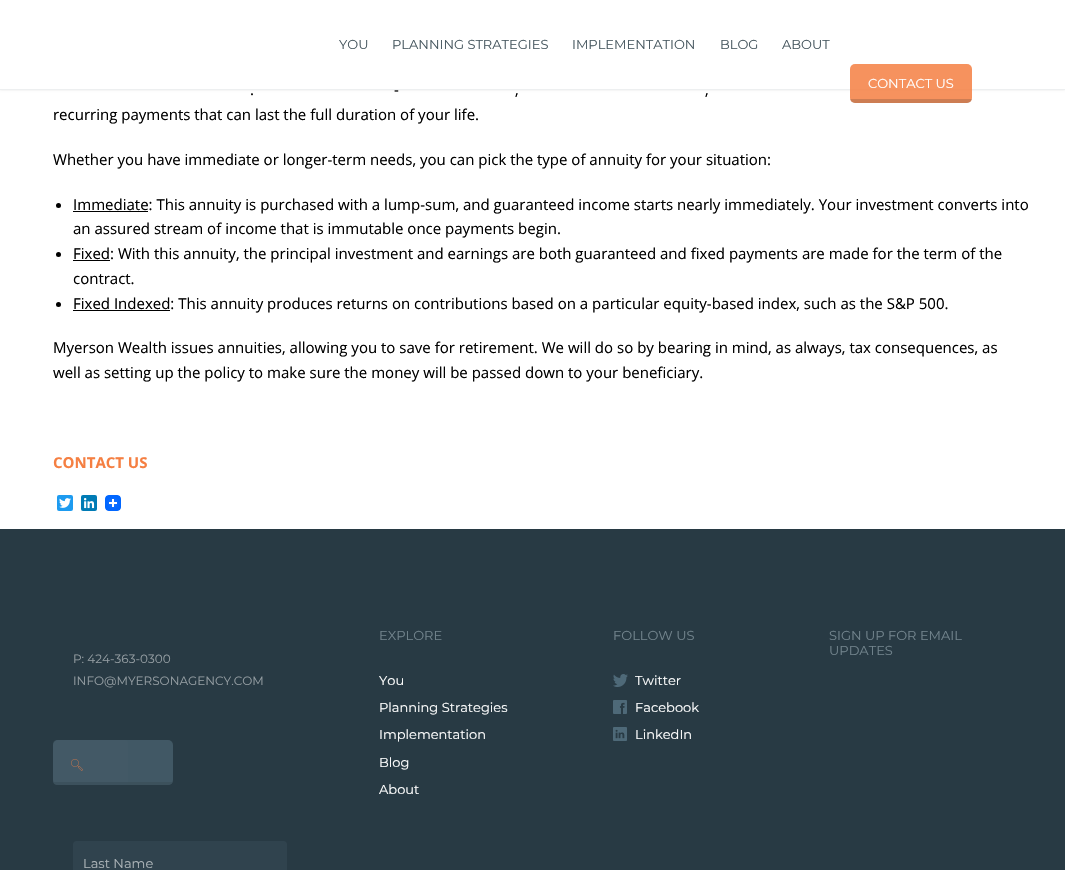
#include "include/core/SkBlurTypes.h"
#include "include/core/SkCanvas.h"
#include "include/core/SkData.h"
#include "include/core/SkFont.h"
#include "include/core/SkFontMgr.h"
#include "include/core/SkImage.h"
#include "include/core/SkMaskFilter.h"
#include "include/core/SkPaint.h"
#include "include/core/SkPathBuilder.h"
#include "include/core/SkTextBlob.h"
#include "include/effects/SkDashPathEffect.h"
#include "include/effects/SkGradientShader.h"
#include "include/utils/SkParsePath.h"

extern sk_sp<SkFontMgr> fontMgr;

static SkFont font(const char* family, int weight, float size, bool italic = false) {
    SkFontStyle style(weight, SkFontStyle::kNormal_Width,
        italic ? SkFontStyle::kItalic_Slant : SkFontStyle::kUpright_Slant);
    SkFont result(fontMgr->matchFamilyStyle(family, style), size);
    result.setSubpixel(true);
    return result;
}

static void drawLabel(SkCanvas* canvas, const char* s, float x, float y, const SkFont& font, SkColor color) {
    SkPaint ink(SkColor4f::FromColor(color));
    ink.setAntiAlias(true);
    canvas->drawString(s, x, y, font, ink);
}

static void fillRect(SkCanvas* canvas, float x, float y, float w, float h, SkColor color) {
    SkPaint ink(SkColor4f::FromColor(color));
    ink.setAntiAlias(true);
    canvas->drawRect(SkRect::MakeXYWH(x, y, w, h), ink);
}

static void fillRRect(SkCanvas* canvas, float x, float y, float w, float h, float radius, SkColor color) {
    SkPaint ink(SkColor4f::FromColor(color));
    ink.setAntiAlias(true);
    canvas->drawRoundRect(SkRect::MakeXYWH(x, y, w, h), radius, radius, ink);
}

static void drawPhoto(SkCanvas* canvas, const char* path, float x, float y, float w, float h) {
    auto image = SkImages::DeferredFromEncodedData(SkData::MakeFromFileName(path));
    canvas->drawImageRect(image, SkRect::MakeXYWH(x, y, w, h), SkSamplingOptions());
}

static SkPath parsePath(const char* data, bool evenOdd = false) {
    SkPath result = *SkParsePath::FromSVGString(data);
    if (evenOdd) result.setFillType(SkPathFillType::kEvenOdd);
    return result;
}

void draw(SkCanvas* canvas) {
    SkPaint paint;
    paint.setAntiAlias(true);
    canvas->clear(0xFFFFFFFF);
    paint.setColor(0x1A000000);
    paint.setMaskFilter(SkMaskFilter::MakeBlur(kNormal_SkBlurStyle, 1));
    canvas->drawRect(SkRect::MakeXYWH(0, 0, 1065, 90), paint);
    paint.setMaskFilter(nullptr);
    fillRect(canvas, 0, 0, 1065, 89, 0xFFFFFFFF);
    fillRect(canvas, 0, 89, 1065, 1, 0xFFEDEFF0);
    SkFont font1 = font("Montserrat", 100, 13);
    drawLabel(canvas, "YOU", 339, 49, font1, 0xFF485860);
    drawLabel(canvas, "PLANNING STRATEGIES", 392, 49, font1, 0xFF485860);
    drawLabel(canvas, "IMPLEMENTATION", 572, 49, font1, 0xFF485860);
    drawLabel(canvas, "BLOG", 720, 49, font1, 0xFF485860);
    drawLabel(canvas, "ABOUT", 782, 49, font1, 0xFF485860);
    fillRRect(canvas, 850, 64, 122, 39, 5, 0xD9F57F42);
    drawLabel(canvas, "CONTACT US", 868, 88, font1, 0xFFFFFFFF);
    canvas->save();
    canvas->clipPath(parsePath("M855 64H967C970 64 972 66 972 69V98C972 101 970 103 967 103H855C852 103 850 101 850 98V69C850 66 852 64 855 64Z"), true);
    paint.setColor(0x33262626);
    canvas->drawPath(parsePath("M850 99H972C972 101 970 103 968 103H854C852 103 850 101 850 99Z"), paint);
    canvas->restore();
    SkFont font2 = font("Open Sans", 400, 15);
    drawLabel(canvas, "-", 394, 95, font2, 0xFF000000);
    drawLabel(canvas, ".", 250, 95, font2, 0xFF000000);
    drawLabel(canvas, ",", 515, 95, font2, 0xFF000000);
    drawLabel(canvas, ",", 705, 95, font2, 0xFF000000);
    drawLabel(canvas, "recurring payments that can last the full duration of your life.", 53, 120, font2, 0xFF000000);
    drawLabel(canvas, "Whether you have immediate or longer-term needs, you can pick the type of annuity for your situation:", 53, 165, font2, 0xFF000000);
    paint.setColor(0xFF000000);
    canvas->drawCircle(58.5f, 205.5f, 2.5f, paint);
    fillRect(canvas, 73, 211, 75, 1, 0xFF000000);
    drawLabel(canvas, "Immediate: This annuity is purchased with a lump-sum, and guaranteed income starts nearly immediately. Your investment converts into", 73, 210, font2, 0xFF000000);
    drawLabel(canvas, "an assured stream of income that is immutable once payments begin.", 73, 234, font2, 0xFF000000);
    canvas->drawCircle(58.5f, 254.5f, 2.5f, paint);
    fillRect(canvas, 73, 260, 37, 1, 0xFF000000);
    drawLabel(canvas, "Fixed: With this annuity, the principal investment and earnings are both guaranteed and fixed payments are made for the term of the", 73, 259, font2, 0xFF000000);
    drawLabel(canvas, "contract.", 73, 284, font2, 0xFF000000);
    canvas->drawCircle(58.5f, 304.5f, 2.5f, paint);
    fillRect(canvas, 73, 310, 97, 1, 0xFF000000);
    drawLabel(canvas, "Fixed Indexed: This annuity produces returns on contributions based on a particular equity-based index, such as the S&P 500.", 73, 309, font2, 0xFF000000);
    drawLabel(canvas, "Myerson Wealth issues annuities, allowing you to save for retirement. We will do so by bearing in mind, as always, tax consequences, as", 53, 353, font2, 0xFF000000);
    drawLabel(canvas, "well as setting up the policy to make sure the money will be passed down to your beneficiary.", 53, 378, font2, 0xFF000000);
    SkFont font3 = font("Open Sans", 700, 15);
    drawLabel(canvas, "CONTACT US", 53, 468, font3, 0xFFF57F42);
    fillRRect(canvas, 57, 495, 16, 16, 2, 0xFF1D9BF0);
    drawPhoto(canvas, "assets/img1.png", 59, 498, 12, 10);
    fillRRect(canvas, 81, 495, 16, 16, 2, 0xFF007BB5);
    drawPhoto(canvas, "assets/img2.png", 84, 498, 11, 11);
    drawPhoto(canvas, "assets/img3.png", 105, 495, 16, 16);
    fillRect(canvas, 0, 529, 1065, 341, 0xFF283A44);
    drawLabel(canvas, "SIGN UP FOR EMAIL", 829, 640, font1, 0xFF71838C);
    drawLabel(canvas, "UPDATES", 829, 655, font1, 0xFF71838C);
    fillRRect(canvas, 73, 841, 214, 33, 4, 0xFF30434E);
    drawLabel(canvas, "Last Name", 83, 868, font1, 0xFFACB4B8);
    SkFont font4 = font("Montserrat", 100, 12);
    drawLabel(canvas, "P: 424-363-0300", 73, 663, font4, 0xFF949DA2);
    drawLabel(canvas, "INFO@MYERSONAGENCY.COM", 73, 685, font4, 0xFF949DA2);
    fillRRect(canvas, 53, 740, 75, 45, 4, 0xFF30434E);
    fillRRect(canvas, 53, 740, 120, 45, 5, 0xD9455D6A);
    drawPhoto(canvas, "assets/img4.png", 71, 759, 12, 12);
    canvas->save();
    canvas->clipPath(parsePath("M58 740H168C171 740 173 742 173 745V780C173 783 171 785 168 785H58C55 785 53 783 53 780V745C53 742 55 740 58 740Z"), true);
    paint.setColor(0xD93B4F5A);
    canvas->drawPath(parsePath("M53 782H173C173 783.5 171.5 785 170 785H56C54.5 785 53 783.5 53 782Z"), paint);
    canvas->restore();
    drawLabel(canvas, "EXPLORE", 379, 640, font1, 0xFF71838C);
    drawLabel(canvas, "You", 379, 685, font1, 0xFFFFFFFF);
    drawLabel(canvas, "Planning Strategies", 379, 712, font1, 0xFFFFFFFF);
    drawLabel(canvas, "Implementation", 379, 739, font1, 0xFFFFFFFF);
    drawLabel(canvas, "Blog", 379, 767, font1, 0xFFFFFFFF);
    drawLabel(canvas, "About", 379, 794, font1, 0xFFFFFFFF);
    drawLabel(canvas, "FOLLOW US", 613, 640, font1, 0xFF71838C);
    drawPhoto(canvas, "assets/img5.png", 613, 674, 15, 13);
    drawLabel(canvas, "Twitter", 635, 685, font1, 0xFFFFFFFF);
    drawPhoto(canvas, "assets/img6.png", 613, 700, 14, 14);
    drawLabel(canvas, "Facebook", 635, 712, font1, 0xFFFFFFFF);
    drawPhoto(canvas, "assets/img7.png", 613, 727, 14, 14);
    drawLabel(canvas, "LinkedIn", 635, 739, font1, 0xFFFFFFFF);
}
